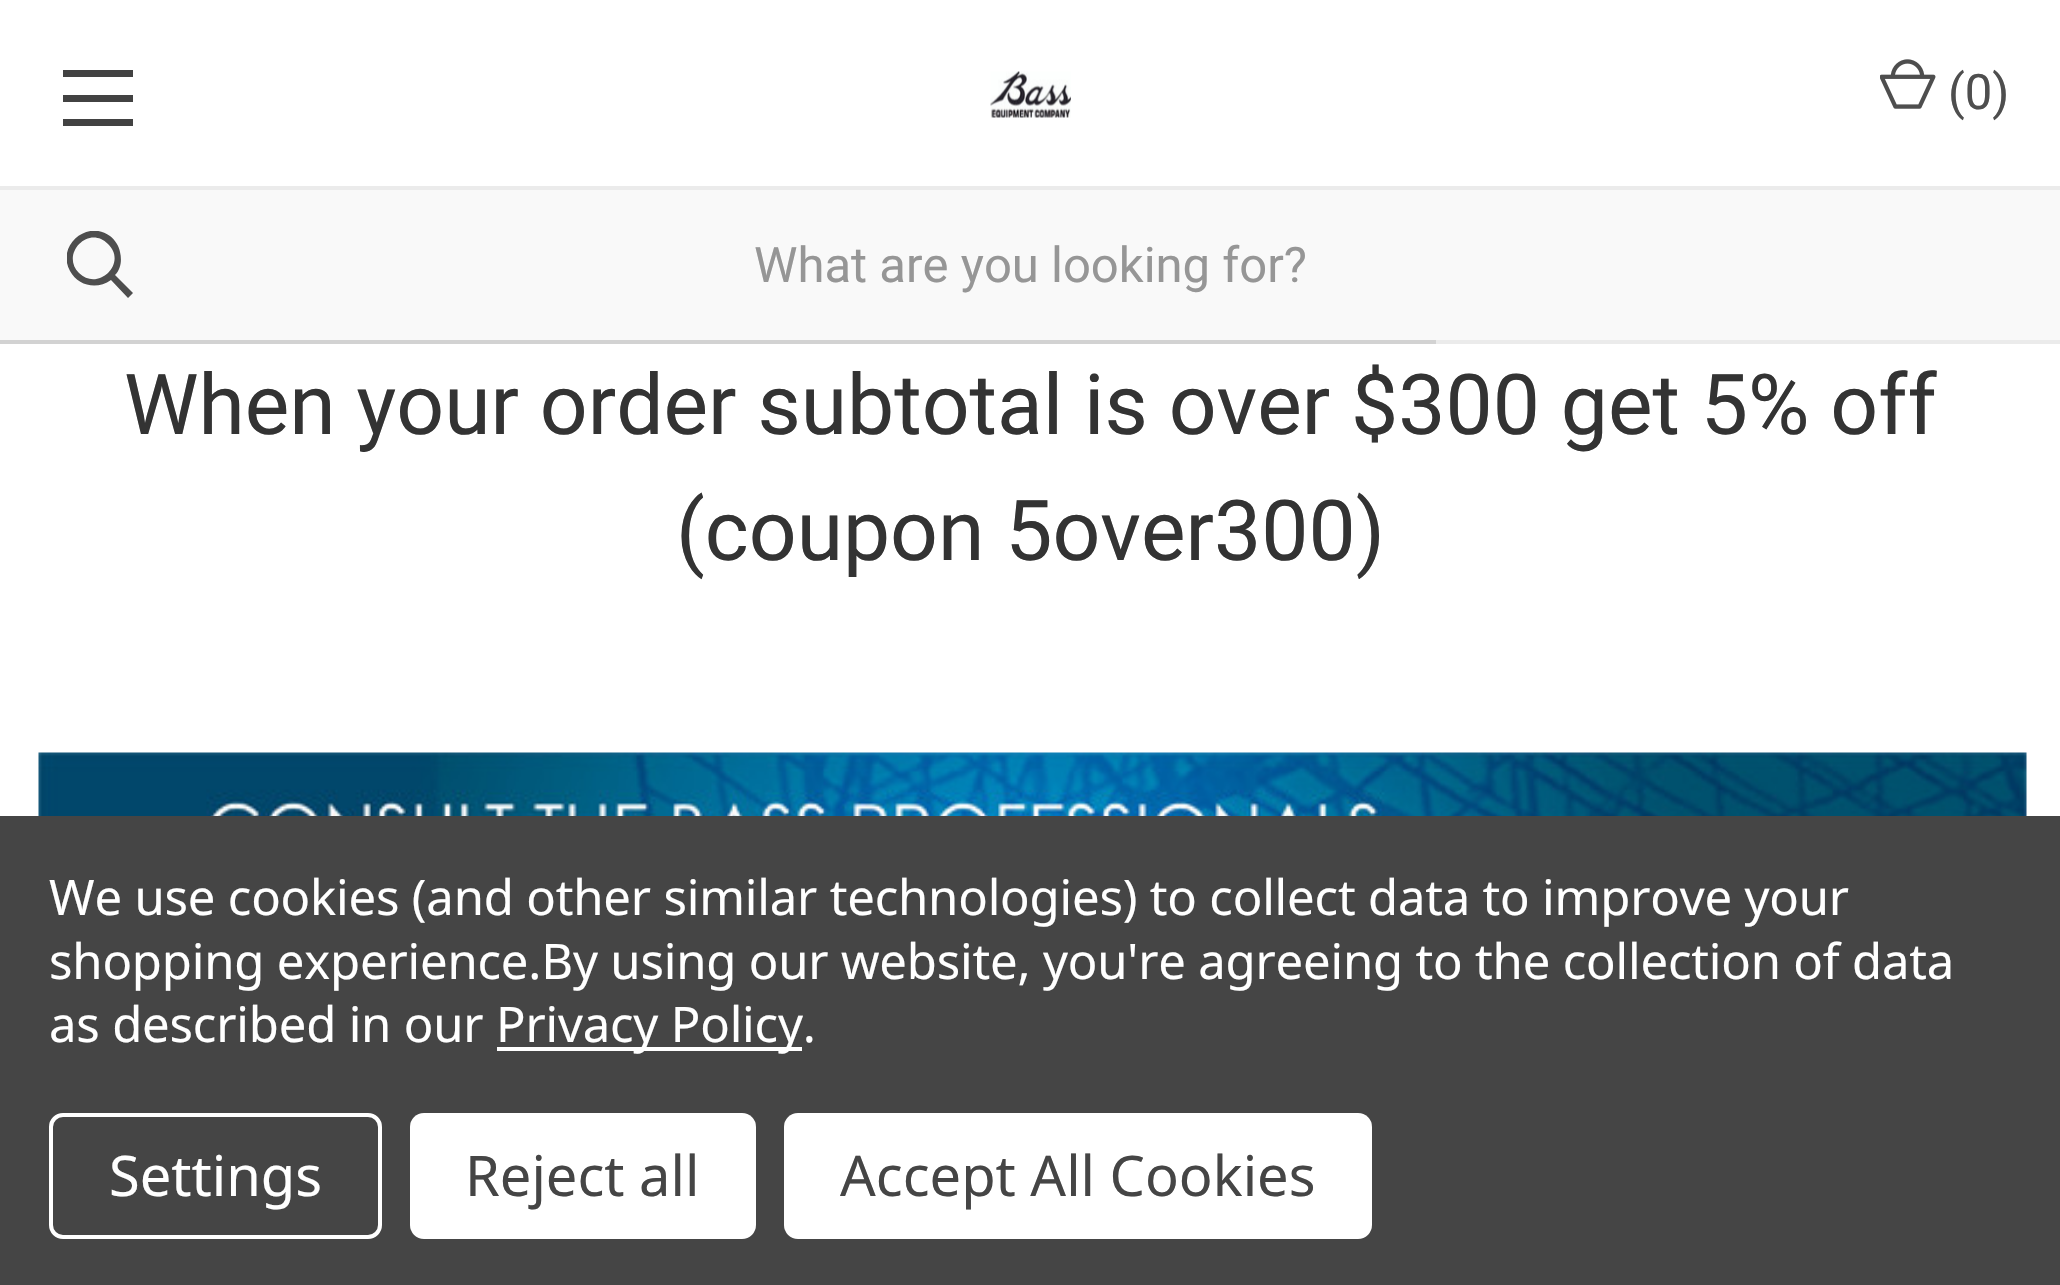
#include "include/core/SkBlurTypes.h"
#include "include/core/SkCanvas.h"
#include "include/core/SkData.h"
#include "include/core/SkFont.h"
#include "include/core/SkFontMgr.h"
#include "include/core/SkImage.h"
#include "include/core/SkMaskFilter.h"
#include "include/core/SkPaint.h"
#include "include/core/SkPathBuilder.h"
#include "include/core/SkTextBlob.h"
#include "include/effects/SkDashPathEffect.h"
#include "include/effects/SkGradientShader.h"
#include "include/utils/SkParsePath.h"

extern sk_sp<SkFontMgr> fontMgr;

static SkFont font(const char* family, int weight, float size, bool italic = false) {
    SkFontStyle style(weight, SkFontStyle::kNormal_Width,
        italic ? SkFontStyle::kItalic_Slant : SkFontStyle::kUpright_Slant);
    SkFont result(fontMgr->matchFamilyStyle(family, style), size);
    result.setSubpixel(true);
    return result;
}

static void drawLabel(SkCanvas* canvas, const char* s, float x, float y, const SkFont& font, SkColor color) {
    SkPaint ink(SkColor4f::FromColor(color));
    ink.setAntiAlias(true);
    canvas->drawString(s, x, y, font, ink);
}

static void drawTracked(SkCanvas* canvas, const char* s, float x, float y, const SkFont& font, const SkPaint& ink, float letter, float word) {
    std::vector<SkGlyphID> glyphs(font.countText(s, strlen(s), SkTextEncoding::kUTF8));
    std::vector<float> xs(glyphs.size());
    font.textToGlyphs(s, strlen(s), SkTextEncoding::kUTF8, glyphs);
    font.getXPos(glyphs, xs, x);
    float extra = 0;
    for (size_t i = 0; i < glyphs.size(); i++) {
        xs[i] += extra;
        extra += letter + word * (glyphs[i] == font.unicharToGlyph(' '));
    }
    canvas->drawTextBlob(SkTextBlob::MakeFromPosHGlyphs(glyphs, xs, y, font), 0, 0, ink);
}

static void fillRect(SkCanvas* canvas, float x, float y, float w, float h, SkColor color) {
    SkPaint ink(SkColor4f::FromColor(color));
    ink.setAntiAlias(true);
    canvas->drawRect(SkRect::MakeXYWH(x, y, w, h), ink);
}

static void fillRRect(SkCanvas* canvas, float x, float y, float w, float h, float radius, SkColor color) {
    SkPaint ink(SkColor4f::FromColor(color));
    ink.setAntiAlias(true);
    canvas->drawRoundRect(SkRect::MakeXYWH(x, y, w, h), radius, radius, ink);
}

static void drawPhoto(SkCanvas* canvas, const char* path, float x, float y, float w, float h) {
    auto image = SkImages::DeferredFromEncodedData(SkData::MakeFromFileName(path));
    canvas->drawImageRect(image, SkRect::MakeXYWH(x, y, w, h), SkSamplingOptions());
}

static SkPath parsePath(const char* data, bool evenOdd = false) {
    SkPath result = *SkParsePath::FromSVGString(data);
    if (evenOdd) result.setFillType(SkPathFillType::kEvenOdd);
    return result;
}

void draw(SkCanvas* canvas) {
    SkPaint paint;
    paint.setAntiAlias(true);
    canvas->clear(0xFFFFFFFF);
    fillRect(canvas, 1436, 340, 624, 4, 0xFFEBEBEB);
    fillRect(canvas, 63, 95, 70, 7, 0xFF424242);
    fillRect(canvas, 63, 70, 70, 7, 0xFF424242);
    fillRect(canvas, 63, 119, 70, 7, 0xFF424242);
    drawPhoto(canvas, "assets/img1.png", 990, 71, 81, 47);
    drawPhoto(canvas, "assets/img2.png", 1880, 59, 56, 50);
    SkFont font1 = font("Roboto", 400, 49);
    drawLabel(canvas, "(0)", 1948, 109, font1, 0xFF4E4E4E);
    fillRect(canvas, 0, 190, 2060, 150, 0xFFF9F9F9);
    canvas->save();
    canvas->clipRect(SkRect::MakeXYWH(67, 231, 66, 67));
    paint.setColor(0xFF4E4E4E);
    canvas->drawPath(parsePath("M133 293L128 298L111 280C97 290 78 286 70 271C56 246 87 219 110 236C115 240 119 246 120 252C122 260 121 269 115 275ZM79 273C98 292 128 263 108 244C89 224 60 254 79 273Z", true), paint);
    canvas->restore();
    fillRect(canvas, 0, 186, 2060, 4, 0xFFEBEBEB);
    drawLabel(canvas, "What are you looking for?", 754, 282, font1, 0xFF969696);
    fillRect(canvas, 0, 340, 1436, 4, 0xFFD2D2D2);
    SkFont font2 = font("Roboto", 400, 84);
    drawLabel(canvas, "When your order subtotal is over $300 get 5% off", 124, 434, font2, 0xFF333333);
    drawLabel(canvas, "(coupon 5over300)", 676, 560, font2, 0xFF333333);
    drawPhoto(canvas, "assets/img3.png", 38, 752, 1989, 64);
    fillRect(canvas, 0, 816, 2060, 469, 0xFF454545);
    SkFont font3 = font("Noto Sans", 400, 49);
    paint.setColor(0xFFFFFFFF);
    drawTracked(canvas, "We use cookies (and other similar technologies) to collect data to improve your", 49, 915, font3, paint, -0.18f, 0);
    drawTracked(canvas, "shopping experience.By using our website, you're agreeing to the collection of data", 49, 979, font3, paint, -0.18f, 0);
    drawTracked(canvas, "as described in our", 49, 1042, font3, paint, -0.18f, 0);
    fillRect(canvas, 497, 1047, 305, 4, 0xFFFFFFFF);
    drawTracked(canvas, "Privacy Policy.", 496, 1042, font3, paint, -0.18f, 0);
    paint.setStroke(true);
    paint.setStrokeWidth(4);
    canvas->drawRoundRect(SkRect::MakeXYWH(51, 1115, 329, 122), 12, 12, paint);
    SkFont font4 = font("Noto Sans", 400, 56);
    drawLabel(canvas, "Settings", 109, 1196, font4, 0xFFFFFFFF);
    fillRRect(canvas, 410, 1113, 346, 126, 14, 0xFFFFFFFF);
    drawLabel(canvas, "Reject all", 465, 1196, font4, 0xFF454545);
    fillRRect(canvas, 784, 1113, 588, 126, 14, 0xFFFFFFFF);
    drawLabel(canvas, "Accept All Cookies", 840, 1196, font4, 0xFF454545);
}
